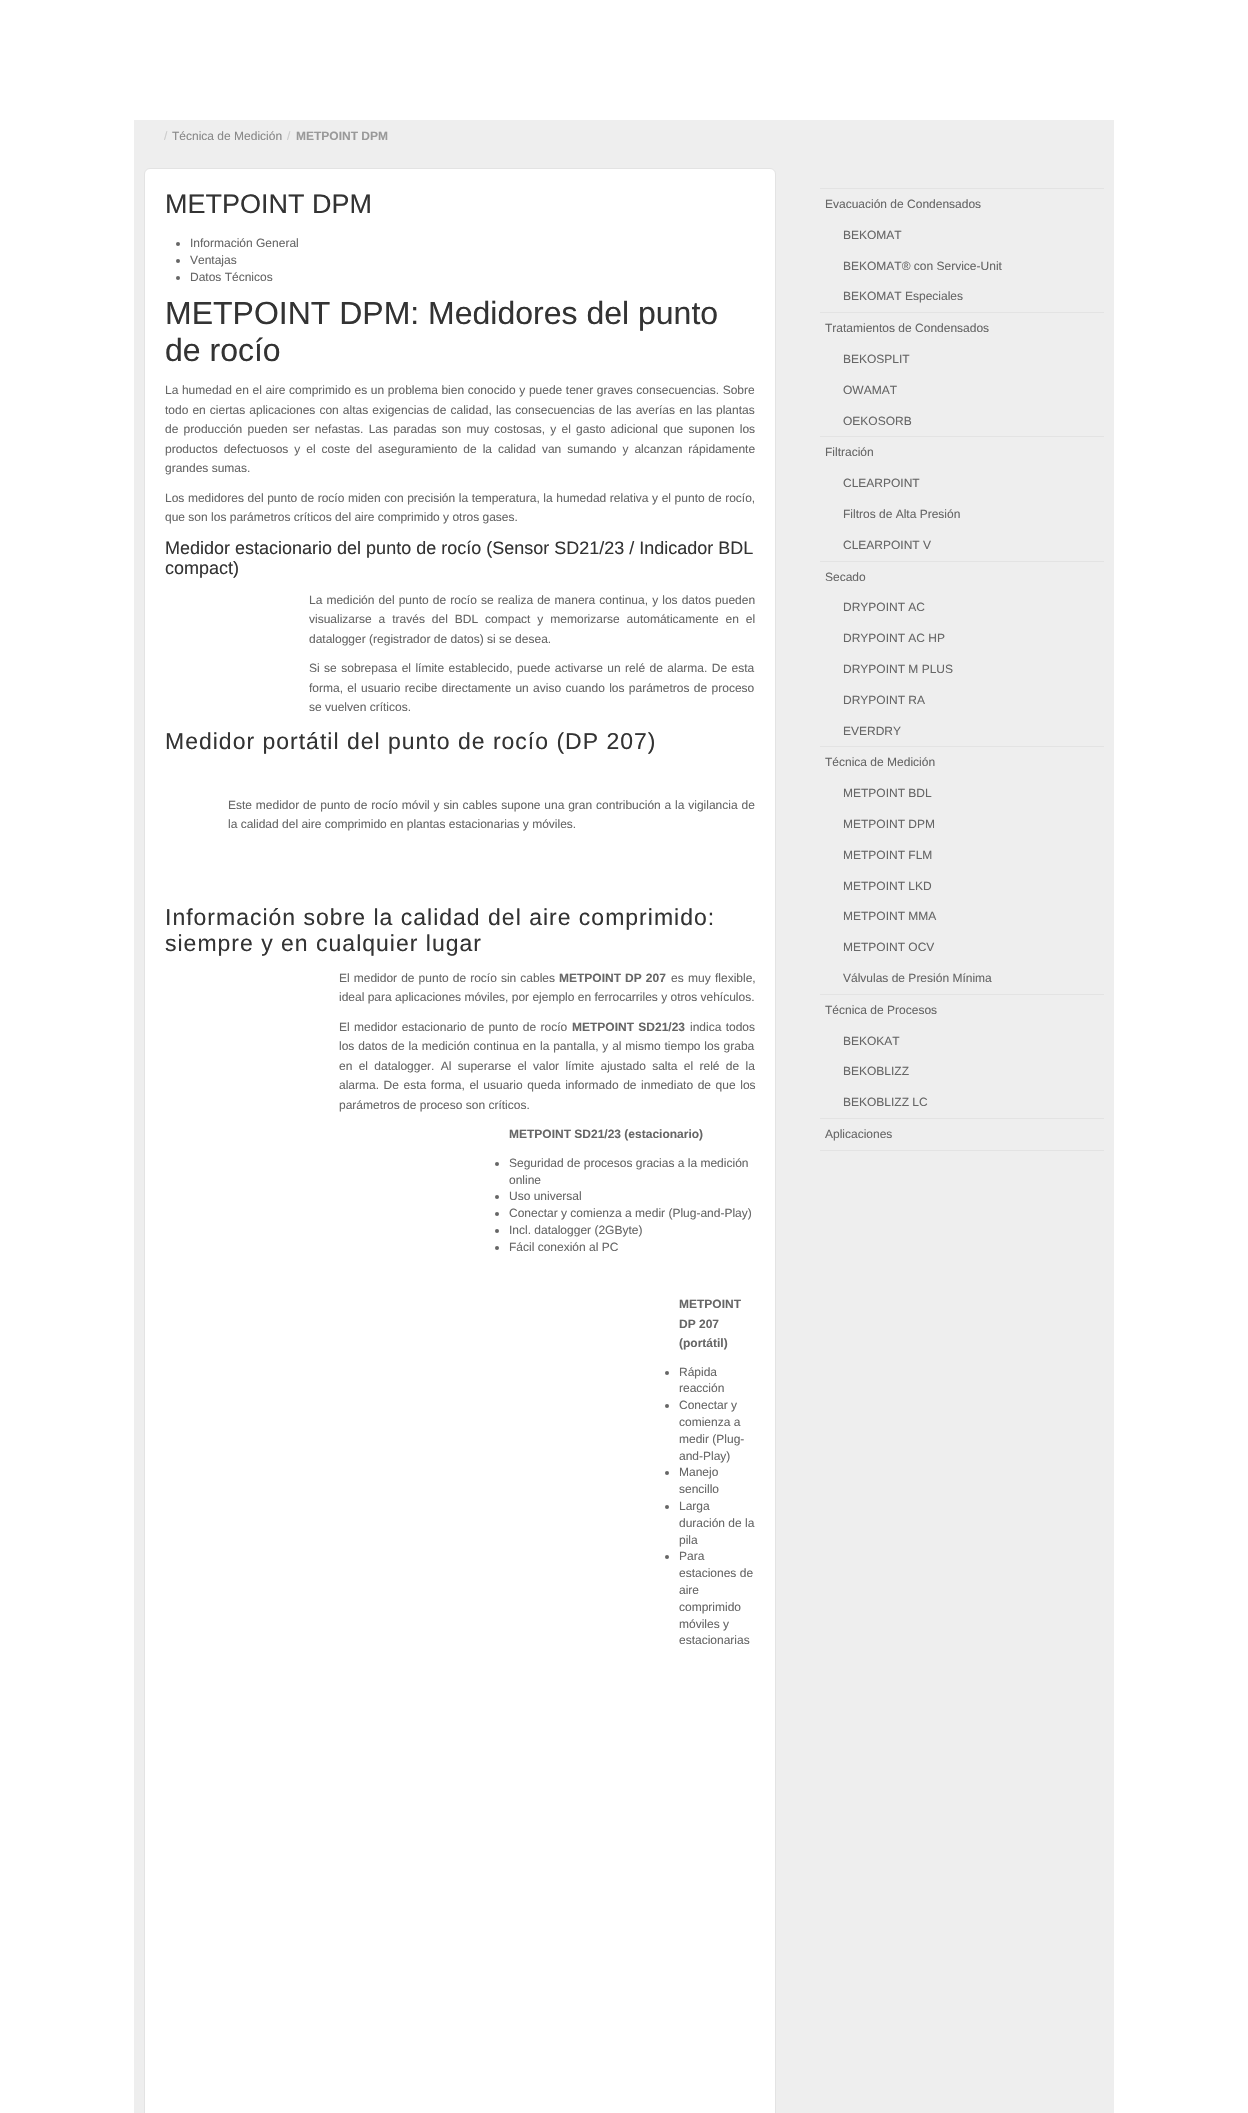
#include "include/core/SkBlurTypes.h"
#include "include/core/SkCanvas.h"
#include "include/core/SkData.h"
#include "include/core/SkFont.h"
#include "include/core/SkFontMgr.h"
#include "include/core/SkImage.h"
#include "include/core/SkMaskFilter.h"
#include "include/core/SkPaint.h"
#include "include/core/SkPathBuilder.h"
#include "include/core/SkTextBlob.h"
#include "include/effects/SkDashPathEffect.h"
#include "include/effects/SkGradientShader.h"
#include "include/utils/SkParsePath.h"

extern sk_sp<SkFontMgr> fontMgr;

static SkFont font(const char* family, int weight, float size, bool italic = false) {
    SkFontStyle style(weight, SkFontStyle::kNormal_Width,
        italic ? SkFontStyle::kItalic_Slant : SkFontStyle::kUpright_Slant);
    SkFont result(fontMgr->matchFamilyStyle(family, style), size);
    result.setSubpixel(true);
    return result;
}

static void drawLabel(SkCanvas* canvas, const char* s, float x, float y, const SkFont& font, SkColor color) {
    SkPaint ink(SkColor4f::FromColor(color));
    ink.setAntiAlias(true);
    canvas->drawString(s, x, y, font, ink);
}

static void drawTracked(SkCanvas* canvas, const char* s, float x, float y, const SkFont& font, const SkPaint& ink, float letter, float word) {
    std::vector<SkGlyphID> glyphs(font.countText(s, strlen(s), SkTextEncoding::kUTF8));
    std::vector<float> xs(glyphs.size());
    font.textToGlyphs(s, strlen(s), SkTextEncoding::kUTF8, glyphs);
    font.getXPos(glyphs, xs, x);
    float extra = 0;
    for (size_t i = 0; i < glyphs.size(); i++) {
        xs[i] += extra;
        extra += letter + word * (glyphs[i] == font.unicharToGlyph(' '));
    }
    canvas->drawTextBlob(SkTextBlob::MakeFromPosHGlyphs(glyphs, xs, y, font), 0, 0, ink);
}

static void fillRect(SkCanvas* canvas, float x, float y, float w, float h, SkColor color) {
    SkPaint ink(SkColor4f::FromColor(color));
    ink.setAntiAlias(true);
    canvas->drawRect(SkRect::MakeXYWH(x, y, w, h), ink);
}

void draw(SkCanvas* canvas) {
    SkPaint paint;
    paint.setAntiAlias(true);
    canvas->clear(0xFFFFFFFF);
    fillRect(canvas, 134, 120, 980, 1993, 0xFFEEEEEE);
    SkFont font1 = font("Liberation Sans", 400, 12);
    drawLabel(canvas, "/", 164, 140, font1, 0xFFCCCCCC);
    drawLabel(canvas, "Técnica de Medición", 172, 140, font1, 0xFF888888);
    drawLabel(canvas, "/", 287, 140, font1, 0xFFCCCCCC);
    SkFont font2 = font("Liberation Sans", 700, 12);
    drawLabel(canvas, "METPOINT DPM", 296, 140, font2, 0xFF999999);
    paint.setColor(0xFFFFFFFF);
    canvas->drawRoundRect(SkRect::MakeXYWH(144.5f, 168.5f, 631, 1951), 5.5f, 5.5f, paint);
    paint.setStroke(true);
    paint.setStrokeWidth(1);
    paint.setColor(0xFFE3E3E3);
    canvas->drawRoundRect(SkRect::MakeXYWH(144.5f, 168.5f, 631, 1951), 5.5f, 5.5f, paint);
    SkFont font3 = font("Liberation Sans", 400, 27);
    drawLabel(canvas, "METPOINT DPM", 165, 213, font3, 0xFF333333);
    paint.setStroke(false);
    paint.setColor(0xFF666666);
    canvas->drawCircle(178, 244, 2, paint);
    drawLabel(canvas, "Información General", 190, 247, font1, 0xFF666666);
    canvas->drawCircle(178, 261, 2, paint);
    drawLabel(canvas, "Ventajas", 190, 264, font1, 0xFF666666);
    canvas->drawCircle(178, 278, 2, paint);
    drawLabel(canvas, "Datos Técnicos", 190, 281, font1, 0xFF666666);
    SkFont font4 = font("Liberation Sans", 400, 32);
    drawLabel(canvas, "METPOINT DPM: Medidores del punto", 165, 324, font4, 0xFF333333);
    drawLabel(canvas, "de rocío", 165, 361, font4, 0xFF333333);
    drawTracked(canvas, "La humedad en el aire comprimido es un problema bien conocido y puede tener graves consecuencias. Sobre", 165, 394, font1, paint, 0, 0.25f);
    drawTracked(canvas, "todo en ciertas aplicaciones con altas exigencias de calidad, las consecuencias de las averías en las plantas", 165, 414, font1, paint, 0, 0.75f);
    drawTracked(canvas, "de producción pueden ser nefastas. Las paradas son muy costosas, y el gasto adicional que suponen los", 165, 433, font1, paint, 0, 1.9f);
    drawTracked(canvas, "productos defectuosos y el coste del aseguramiento de la calidad van sumando y alcanzan rápidamente", 165, 453, font1, paint, 0, 2.6f);
    drawLabel(canvas, "grandes sumas.", 165, 472, font1, 0xFF666666);
    drawTracked(canvas, "Los medidores del punto de rocío miden con precisión la temperatura, la humedad relativa y el punto de rocío,", 165, 502, font1, paint, 0, 0.25f);
    drawLabel(canvas, "que son los parámetros críticos del aire comprimido y otros gases.", 165, 521, font1, 0xFF666666);
    SkFont font5 = font("Liberation Sans", 400, 18);
    drawLabel(canvas, "Medidor estacionario del punto de rocío (Sensor SD21/23 / Indicador BDL", 165, 554, font5, 0xFF333333);
    drawLabel(canvas, "compact)", 165, 574, font5, 0xFF333333);
    drawTracked(canvas, "La medición del punto de rocío se realiza de manera continua, y los datos pueden", 309, 604, font1, paint, 0, 0.75f);
    drawTracked(canvas, "visualizarse a través del BDL compact y memorizarse automáticamente en el", 309, 623, font1, paint, 0, 3.6f);
    drawLabel(canvas, "datalogger (registrador de datos) si se desea.", 309, 643, font1, 0xFF666666);
    drawTracked(canvas, "Si se sobrepasa el límite establecido, puede activarse un relé de alarma. De esta", 309, 672, font1, paint, 0, 1.1f);
    drawTracked(canvas, "forma, el usuario recibe directamente un aviso cuando los parámetros de proceso", 309, 692, font1, paint, 0, 1);
    drawLabel(canvas, "se vuelven críticos.", 309, 711, font1, 0xFF666666);
    SkFont font6 = font("Liberation Sans", 400, 23);
    paint.setColor(0xFF333333);
    drawTracked(canvas, "Medidor portátil del punto de rocío (DP 207)", 165, 749, font6, paint, 1, 0);
    paint.setColor(0xFF666666);
    drawTracked(canvas, "Este medidor de punto de rocío móvil y sin cables supone una gran contribución a la vigilancia de", 228, 809, font1, paint, 0, 0.5f);
    drawLabel(canvas, "la calidad del aire comprimido en plantas estacionarias y móviles.", 228, 828, font1, 0xFF666666);
    paint.setColor(0xFF333333);
    drawTracked(canvas, "Información sobre la calidad del aire comprimido:", 165, 925, font6, paint, 1, 0);
    drawTracked(canvas, "siempre y en cualquier lugar", 165, 951, font6, paint, 1, 0);
    paint.setColor(0xFF666666);
    drawTracked(canvas, "El medidor de punto de rocío sin cables", 339, 982, font1, paint, 0, 0.75f);
    drawTracked(canvas, "METPOINT DP 207", 559, 982, font2, paint, 0, 0.75f);
    drawTracked(canvas, "es muy flexible,", 671, 982, font1, paint, 0, 1);
    drawLabel(canvas, "ideal para aplicaciones móviles, por ejemplo en ferrocarriles y otros vehículos.", 339, 1001, font1, 0xFF666666);
    drawTracked(canvas, "El medidor estacionario de punto de rocío", 339, 1031, font1, paint, 0, 1);
    drawTracked(canvas, "METPOINT SD21/23", 572, 1031, font2, paint, 0, 1);
    drawTracked(canvas, "indica todos", 690, 1031, font1, paint, 0, 1);
    drawTracked(canvas, "los datos de la medición continua en la pantalla, y al mismo tiempo los graba", 339, 1050, font1, paint, 0, 0.5f);
    drawTracked(canvas, "en el datalogger. Al superarse el valor límite ajustado salta el relé de la", 339, 1070, font1, paint, 0, 3);
    drawTracked(canvas, "alarma. De esta forma, el usuario queda informado de inmediato de que los", 339, 1089, font1, paint, 0, 1.25f);
    drawLabel(canvas, "parámetros de proceso son críticos.", 339, 1109, font1, 0xFF666666);
    drawLabel(canvas, "METPOINT SD21/23 (estacionario)", 509, 1138, font2, 0xFF666666);
    canvas->drawCircle(497, 1164, 2, paint);
    drawLabel(canvas, "Seguridad de procesos gracias a la medición", 509, 1167, font1, 0xFF666666);
    drawLabel(canvas, "online", 509, 1184, font1, 0xFF666666);
    canvas->drawCircle(497, 1197, 2, paint);
    drawLabel(canvas, "Uso universal", 509, 1200, font1, 0xFF666666);
    canvas->drawCircle(497, 1214, 2, paint);
    drawLabel(canvas, "Conectar y comienza a medir (Plug-and-Play)", 509, 1217, font1, 0xFF666666);
    canvas->drawCircle(497, 1231, 2, paint);
    drawLabel(canvas, "Incl. datalogger (2GByte)", 509, 1234, font1, 0xFF666666);
    canvas->drawCircle(497, 1248, 2, paint);
    drawLabel(canvas, "Fácil conexión al PC", 509, 1251, font1, 0xFF666666);
    drawLabel(canvas, "METPOINT", 679, 1308, font2, 0xFF666666);
    drawLabel(canvas, "DP 207", 679, 1328, font2, 0xFF666666);
    drawLabel(canvas, "(portátil)", 679, 1347, font2, 0xFF666666);
    canvas->drawCircle(667, 1373, 2, paint);
    drawLabel(canvas, "Rápida", 679, 1376, font1, 0xFF666666);
    drawLabel(canvas, "reacción", 679, 1392, font1, 0xFF666666);
    canvas->drawCircle(667, 1406, 2, paint);
    drawLabel(canvas, "Conectar y", 679, 1409, font1, 0xFF666666);
    drawLabel(canvas, "comienza a", 679, 1426, font1, 0xFF666666);
    drawLabel(canvas, "medir (Plug-", 679, 1443, font1, 0xFF666666);
    drawLabel(canvas, "and-Play)", 679, 1460, font1, 0xFF666666);
    canvas->drawCircle(667, 1473, 2, paint);
    drawLabel(canvas, "Manejo", 679, 1476, font1, 0xFF666666);
    drawLabel(canvas, "sencillo", 679, 1493, font1, 0xFF666666);
    canvas->drawCircle(667, 1507, 2, paint);
    drawLabel(canvas, "Larga", 679, 1510, font1, 0xFF666666);
    drawLabel(canvas, "duración de la", 679, 1527, font1, 0xFF666666);
    drawLabel(canvas, "pila", 679, 1544, font1, 0xFF666666);
    canvas->drawCircle(667, 1557, 2, paint);
    drawLabel(canvas, "Para", 679, 1560, font1, 0xFF666666);
    drawLabel(canvas, "estaciones de", 679, 1577, font1, 0xFF666666);
    drawLabel(canvas, "aire", 679, 1594, font1, 0xFF666666);
    drawLabel(canvas, "comprimido", 679, 1611, font1, 0xFF666666);
    drawLabel(canvas, "móviles y", 679, 1628, font1, 0xFF666666);
    drawLabel(canvas, "estacionarias", 679, 1644, font1, 0xFF666666);
    fillRect(canvas, 820, 188, 284, 1, 0xFFE3E3E3);
    fillRect(canvas, 820, 312, 284, 1, 0xFFE3E3E3);
    drawLabel(canvas, "Evacuación de Condensados", 825, 208, font1, 0xFF666666);
    drawLabel(canvas, "BEKOMAT", 843, 239, font1, 0xFF666666);
    drawLabel(canvas, "BEKOMAT® con Service-Unit", 843, 270, font1, 0xFF666666);
    drawLabel(canvas, "BEKOMAT Especiales", 843, 300, font1, 0xFF666666);
    fillRect(canvas, 820, 436, 284, 1, 0xFFE3E3E3);
    drawLabel(canvas, "Tratamientos de Condensados", 825, 332, font1, 0xFF666666);
    drawLabel(canvas, "BEKOSPLIT", 843, 363, font1, 0xFF666666);
    drawLabel(canvas, "OWAMAT", 843, 394, font1, 0xFF666666);
    drawLabel(canvas, "OEKOSORB", 843, 425, font1, 0xFF666666);
    fillRect(canvas, 820, 561, 284, 1, 0xFFE3E3E3);
    drawLabel(canvas, "Filtración", 825, 456, font1, 0xFF666666);
    drawLabel(canvas, "CLEARPOINT", 843, 487, font1, 0xFF666666);
    drawLabel(canvas, "Filtros de Alta Presión", 843, 518, font1, 0xFF666666);
    drawLabel(canvas, "CLEARPOINT V", 843, 549, font1, 0xFF666666);
    fillRect(canvas, 820, 746, 284, 1, 0xFFE3E3E3);
    drawLabel(canvas, "Secado", 825, 581, font1, 0xFF666666);
    drawLabel(canvas, "DRYPOINT AC", 843, 611, font1, 0xFF666666);
    drawLabel(canvas, "DRYPOINT AC HP", 843, 642, font1, 0xFF666666);
    drawLabel(canvas, "DRYPOINT M PLUS", 843, 673, font1, 0xFF666666);
    drawLabel(canvas, "DRYPOINT RA", 843, 704, font1, 0xFF666666);
    drawLabel(canvas, "EVERDRY", 843, 735, font1, 0xFF666666);
    fillRect(canvas, 820, 994, 284, 1, 0xFFE3E3E3);
    drawLabel(canvas, "Técnica de Medición", 825, 766, font1, 0xFF666666);
    drawLabel(canvas, "METPOINT BDL", 843, 797, font1, 0xFF666666);
    drawLabel(canvas, "METPOINT DPM", 843, 828, font1, 0xFF666666);
    drawLabel(canvas, "METPOINT FLM", 843, 859, font1, 0xFF666666);
    drawLabel(canvas, "METPOINT LKD", 843, 890, font1, 0xFF666666);
    drawLabel(canvas, "METPOINT MMA", 843, 920, font1, 0xFF666666);
    drawLabel(canvas, "METPOINT OCV", 843, 951, font1, 0xFF666666);
    drawLabel(canvas, "Válvulas de Presión Mínima", 843, 982, font1, 0xFF666666);
    fillRect(canvas, 820, 1118, 284, 1, 0xFFE3E3E3);
    drawLabel(canvas, "Técnica de Procesos", 825, 1014, font1, 0xFF666666);
    drawLabel(canvas, "BEKOKAT", 843, 1045, font1, 0xFF666666);
    drawLabel(canvas, "BEKOBLIZZ", 843, 1075, font1, 0xFF666666);
    drawLabel(canvas, "BEKOBLIZZ LC", 843, 1106, font1, 0xFF666666);
    fillRect(canvas, 820, 1150, 284, 1, 0xFFE3E3E3);
    drawLabel(canvas, "Aplicaciones", 825, 1138, font1, 0xFF666666);
}
